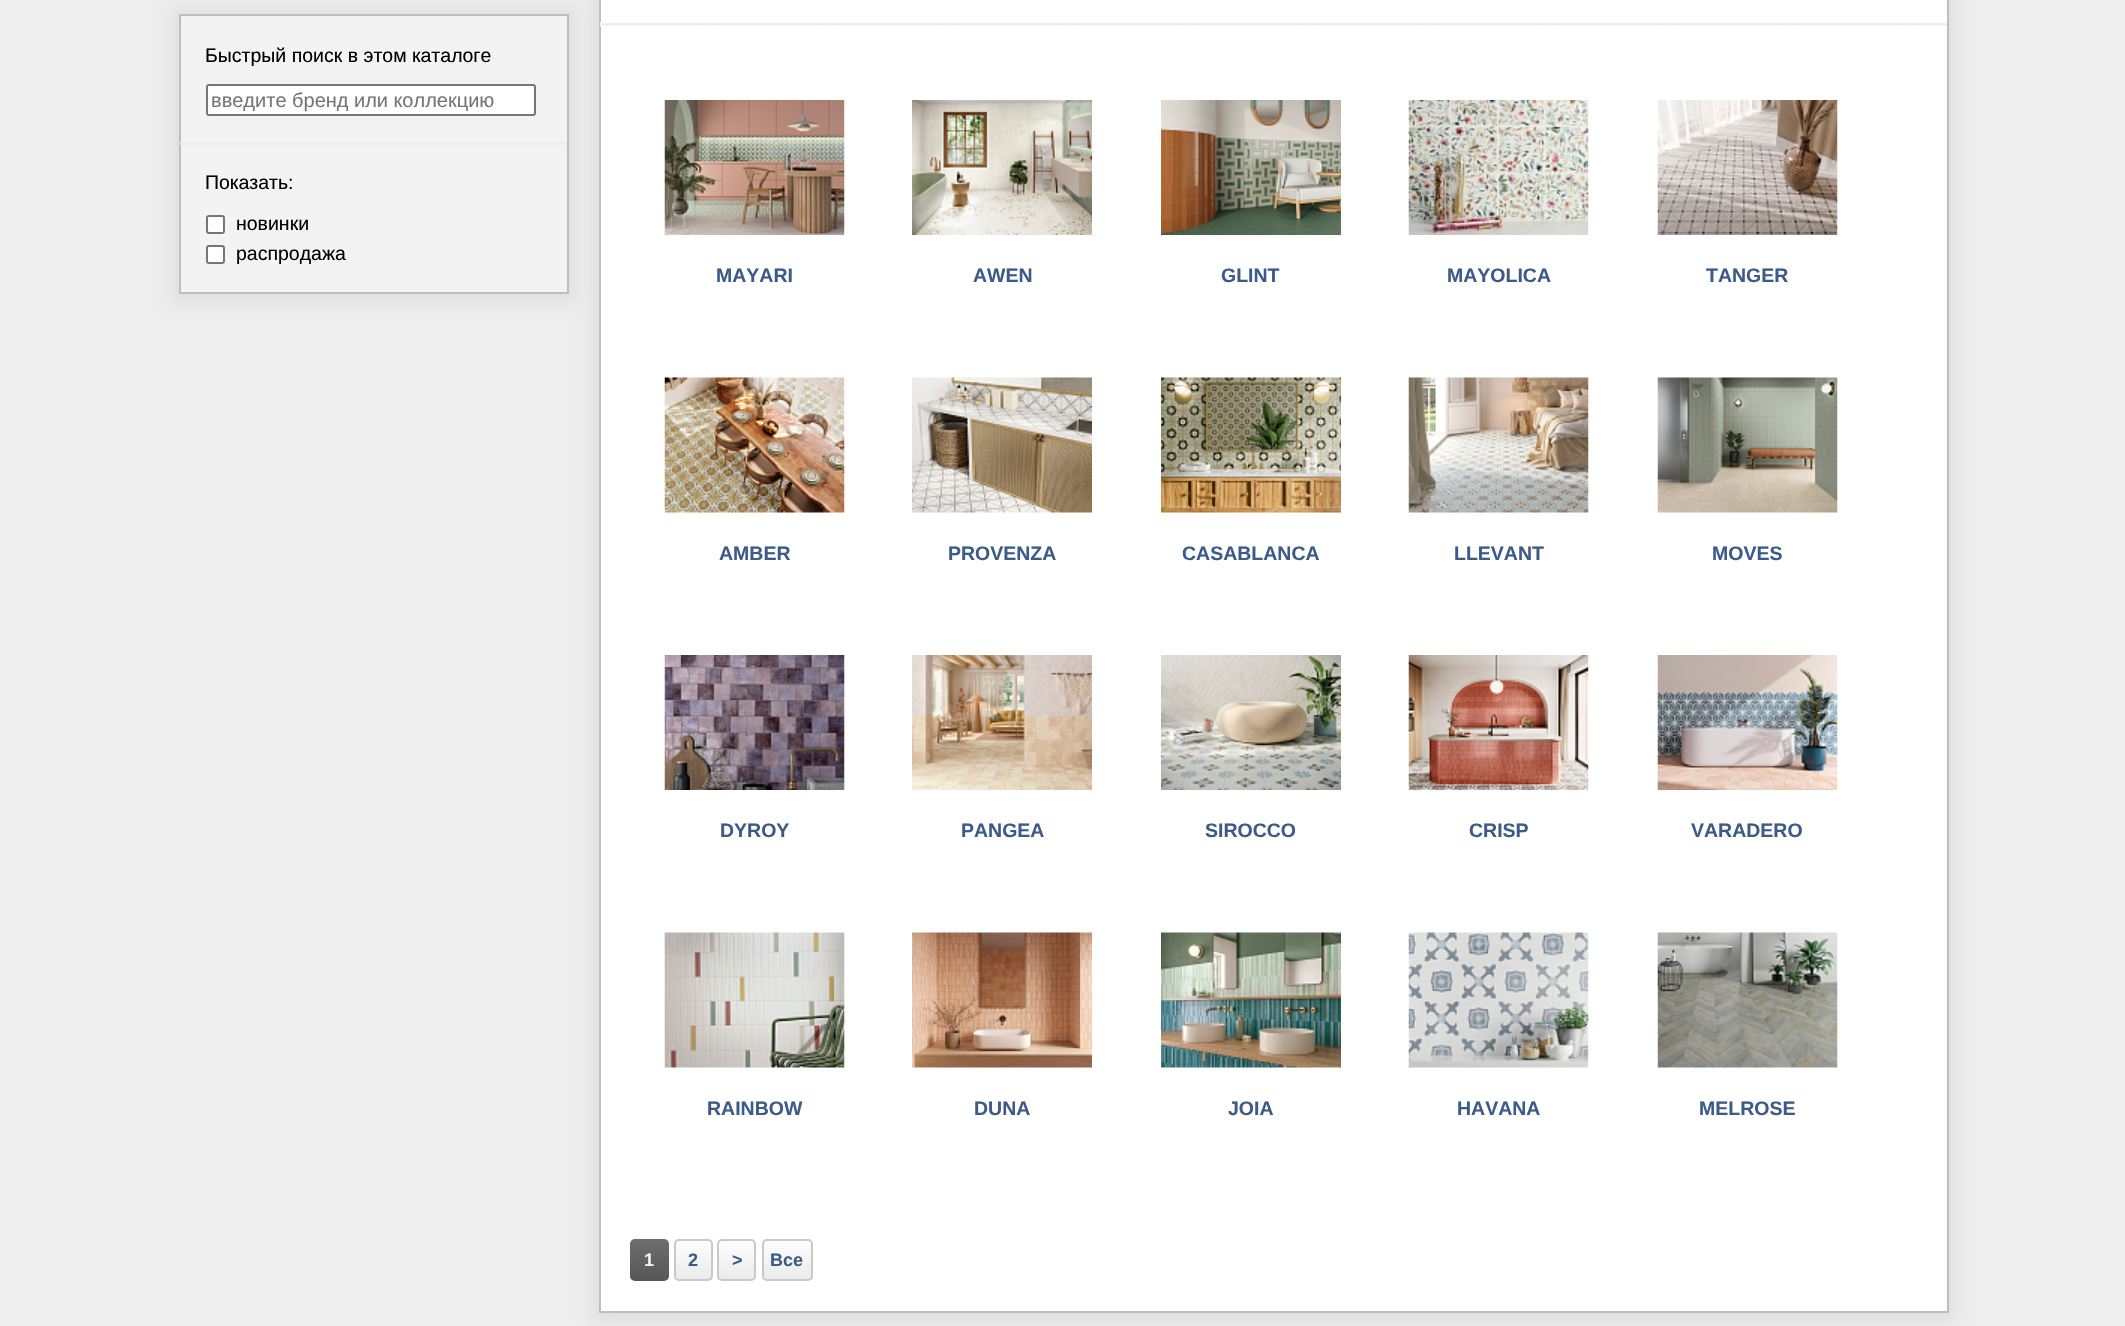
#include "include/core/SkBlurTypes.h"
#include "include/core/SkCanvas.h"
#include "include/core/SkData.h"
#include "include/core/SkFont.h"
#include "include/core/SkFontMgr.h"
#include "include/core/SkImage.h"
#include "include/core/SkMaskFilter.h"
#include "include/core/SkPaint.h"
#include "include/core/SkPathBuilder.h"
#include "include/core/SkTextBlob.h"
#include "include/effects/SkDashPathEffect.h"
#include "include/effects/SkGradientShader.h"
#include "include/utils/SkParsePath.h"

extern sk_sp<SkFontMgr> fontMgr;

static SkFont font(const char* family, int weight, float size, bool italic = false) {
    SkFontStyle style(weight, SkFontStyle::kNormal_Width,
        italic ? SkFontStyle::kItalic_Slant : SkFontStyle::kUpright_Slant);
    SkFont result(fontMgr->matchFamilyStyle(family, style), size);
    result.setSubpixel(true);
    return result;
}

static void drawLabel(SkCanvas* canvas, const char* s, float x, float y, const SkFont& font, SkColor color) {
    SkPaint ink(SkColor4f::FromColor(color));
    ink.setAntiAlias(true);
    canvas->drawString(s, x, y, font, ink);
}

static void fillRect(SkCanvas* canvas, float x, float y, float w, float h, SkColor color) {
    SkPaint ink(SkColor4f::FromColor(color));
    ink.setAntiAlias(true);
    canvas->drawRect(SkRect::MakeXYWH(x, y, w, h), ink);
}

static void fillRRect(SkCanvas* canvas, float x, float y, float w, float h, float radius, SkColor color) {
    SkPaint ink(SkColor4f::FromColor(color));
    ink.setAntiAlias(true);
    canvas->drawRoundRect(SkRect::MakeXYWH(x, y, w, h), radius, radius, ink);
}

static void drawPhoto(SkCanvas* canvas, const char* path, float x, float y, float w, float h) {
    auto image = SkImages::DeferredFromEncodedData(SkData::MakeFromFileName(path));
    canvas->drawImageRect(image, SkRect::MakeXYWH(x, y, w, h), SkSamplingOptions());
}

static SkPath parsePath(const char* data, bool evenOdd = false) {
    SkPath result = *SkParsePath::FromSVGString(data);
    if (evenOdd) result.setFillType(SkPathFillType::kEvenOdd);
    return result;
}

void draw(SkCanvas* canvas) {
    SkPaint paint;
    paint.setAntiAlias(true);
    canvas->clear(0xFFEEEEEE);
    paint.setColor(0xFFE0E0E0);
    paint.setMaskFilter(SkMaskFilter::MakeBlur(kNormal_SkBlurStyle, 7.5f));
    canvas->drawRect(SkRect::MakeXYWH(591, -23, 1365, 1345), paint);
    paint.setMaskFilter(nullptr);
    paint.setColor(0xFFFFFFFF);
    canvas->drawRect(SkRect::MakeXYWH(600, -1, 1348, 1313), paint);
    paint.setStroke(true);
    paint.setStrokeWidth(2);
    paint.setColor(0xFFBEBEBE);
    canvas->drawRect(SkRect::MakeXYWH(600, -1, 1348, 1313), paint);
    paint.setStroke(false);
    paint.setColor(0xFFE0E0E0);
    paint.setMaskFilter(SkMaskFilter::MakeBlur(kNormal_SkBlurStyle, 7.5f));
    canvas->drawRect(SkRect::MakeXYWH(171, 8, 405, 295), paint);
    paint.setMaskFilter(nullptr);
    paint.setColor(0xFFF3F3F3);
    canvas->drawRect(SkRect::MakeXYWH(180, 15, 388, 278), paint);
    paint.setStroke(true);
    paint.setColor(0xFFBEBEBE);
    canvas->drawRect(SkRect::MakeXYWH(180, 15, 388, 278), paint);
    SkFont font1 = font("Arimo", 400, 19.5f);
    drawLabel(canvas, "Быстрый поиск в этом каталоге", 205, 62, font1, 0xFF000000);
    paint.setStroke(false);
    paint.setColor(0xFFFFFFFF);
    canvas->drawRoundRect(SkRect::MakeXYWH(207, 85, 328, 30), 2, 2, paint);
    paint.setStroke(true);
    paint.setColor(0xFF767676);
    canvas->drawRoundRect(SkRect::MakeXYWH(207, 85, 328, 30), 2, 2, paint);
    SkFont font2 = font("Liberation Sans", 400, 20);
    drawLabel(canvas, "введите бренд или коллекцию", 211, 107, font2, 0xFF757575);
    fillRect(canvas, 180, 142, 387, 3, 0xFFEDEDED);
    drawLabel(canvas, "Показать:", 205, 189, font1, 0xFF000000);
    paint.setStroke(false);
    paint.setColor(0xFFFFFFFF);
    canvas->drawRoundRect(SkRect::MakeXYWH(207, 216, 17, 17), 2, 2, paint);
    paint.setStroke(true);
    paint.setColor(0xFF767676);
    canvas->drawRoundRect(SkRect::MakeXYWH(207, 216, 17, 17), 2, 2, paint);
    drawLabel(canvas, "новинки", 236, 230, font1, 0xFF000000);
    paint.setStroke(false);
    paint.setColor(0xFFFFFFFF);
    canvas->drawRoundRect(SkRect::MakeXYWH(207, 246, 17, 17), 2, 2, paint);
    paint.setStroke(true);
    paint.setColor(0xFF767676);
    canvas->drawRoundRect(SkRect::MakeXYWH(207, 246, 17, 17), 2, 2, paint);
    drawLabel(canvas, "распродажа", 236, 260, font1, 0xFF000000);
    drawPhoto(canvas, "assets/img1.png", 600, 22, 1347, 5);
    drawPhoto(canvas, "assets/img2.png", 664, 100, 181, 135);
    SkFont font3 = font("Arimo", 700, 19.5f);
    drawLabel(canvas, "MAYARI", 716, 282, font3, 0xFF3D5B88);
    drawPhoto(canvas, "assets/img3.png", 912, 100, 180, 135);
    drawLabel(canvas, "AWEN", 973, 282, font3, 0xFF3D5B88);
    drawPhoto(canvas, "assets/img4.png", 1161, 100, 180, 135);
    drawLabel(canvas, "GLINT", 1221, 282, font3, 0xFF3D5B88);
    drawPhoto(canvas, "assets/img5.png", 1408, 100, 181, 135);
    drawLabel(canvas, "MAYOLICA", 1447, 282, font3, 0xFF3D5B88);
    drawPhoto(canvas, "assets/img6.png", 1657, 100, 181, 135);
    drawLabel(canvas, "TANGER", 1706, 282, font3, 0xFF3D5B88);
    drawPhoto(canvas, "assets/img7.png", 664, 377, 181, 136);
    drawLabel(canvas, "AMBER", 719, 560, font3, 0xFF3D5B88);
    drawPhoto(canvas, "assets/img8.png", 912, 377, 180, 136);
    drawLabel(canvas, "PROVENZA", 948, 560, font3, 0xFF3D5B88);
    drawPhoto(canvas, "assets/img9.png", 1161, 377, 180, 136);
    drawLabel(canvas, "CASABLANCA", 1182, 560, font3, 0xFF3D5B88);
    drawPhoto(canvas, "assets/img10.png", 1408, 377, 181, 136);
    drawLabel(canvas, "LLEVANT", 1454, 560, font3, 0xFF3D5B88);
    drawPhoto(canvas, "assets/img11.png", 1657, 377, 181, 136);
    drawLabel(canvas, "MOVES", 1712, 560, font3, 0xFF3D5B88);
    drawPhoto(canvas, "assets/img12.png", 664, 655, 181, 135);
    drawLabel(canvas, "DYROY", 720, 837, font3, 0xFF3D5B88);
    drawPhoto(canvas, "assets/img13.png", 912, 655, 180, 135);
    drawLabel(canvas, "PANGEA", 961, 837, font3, 0xFF3D5B88);
    drawPhoto(canvas, "assets/img14.png", 1161, 655, 180, 135);
    drawLabel(canvas, "SIROCCO", 1205, 837, font3, 0xFF3D5B88);
    drawPhoto(canvas, "assets/img15.png", 1408, 655, 181, 135);
    drawLabel(canvas, "CRISP", 1469, 837, font3, 0xFF3D5B88);
    drawPhoto(canvas, "assets/img16.png", 1657, 655, 181, 135);
    drawLabel(canvas, "VARADERO", 1691, 837, font3, 0xFF3D5B88);
    drawPhoto(canvas, "assets/img17.png", 664, 932, 181, 136);
    drawLabel(canvas, "RAINBOW", 707, 1115, font3, 0xFF3D5B88);
    drawPhoto(canvas, "assets/img18.png", 912, 932, 180, 136);
    drawLabel(canvas, "DUNA", 974, 1115, font3, 0xFF3D5B88);
    drawPhoto(canvas, "assets/img19.png", 1161, 932, 180, 136);
    drawLabel(canvas, "JOIA", 1228, 1115, font3, 0xFF3D5B88);
    drawPhoto(canvas, "assets/img20.png", 1408, 932, 181, 136);
    drawLabel(canvas, "HAVANA", 1457, 1115, font3, 0xFF3D5B88);
    drawPhoto(canvas, "assets/img21.png", 1657, 932, 181, 136);
    drawLabel(canvas, "MELROSE", 1699, 1115, font3, 0xFF3D5B88);
    fillRRect(canvas, 630, 1239, 39, 42, 5, 0xFF606060);
    paint.setStroke(false);
    {
        const SkColor colors[] = {0x17000000, 0x17FFFFFF};
        const float stops[] = {0, 1};
        const SkPoint ends[] = {{650, 1281}, {650, 1239}};
        paint.setShader(SkGradientShader::MakeLinear(ends, colors, stops, 2, SkTileMode::kClamp));
        paint.setAlpha(255);
    }
    canvas->drawRoundRect(SkRect::MakeXYWH(630, 1239, 39, 42), 5, 5, paint);
    SkFont font4 = font("Arimo", 700, 18);
    drawLabel(canvas, "1", 644, 1266, font4, 0xFFF2F2F2);
    canvas->save();
    canvas->clipPath(parsePath("M679 1239H708C711 1239 713 1241 713 1244V1276C713 1279 711 1281 708 1281H679C676 1281 674 1279 674 1276V1244C674 1241 676 1239 679 1239Z"), true);
    {
        const SkColor colors[] = {0xFFFEFEFE, 0xFFEAEAEA};
        const float stops[] = {0, 1};
        const SkPoint ends[] = {{693, 1241}, {693, 1280}};
        paint.setShader(SkGradientShader::MakeLinear(ends, colors, stops, 2, SkTileMode::kClamp));
        paint.setAlpha(255);
    }
    canvas->drawRect(SkRect::MakeXYWH(674, 1241, 39, 39), paint);
    canvas->restore();
    paint.setStroke(true);
    paint.setShader(nullptr);
    paint.setColor(0xFFC9C9C9);
    canvas->drawRoundRect(SkRect::MakeXYWH(675, 1240, 37, 40), 4, 4, paint);
    drawLabel(canvas, "2", 688, 1266, font4, 0xFF3D5B88);
    canvas->save();
    canvas->clipPath(parsePath("M722 1239H751C754 1239 756 1241 756 1244V1276C756 1279 754 1281 751 1281H722C719 1281 717 1279 717 1276V1244C717 1241 719 1239 722 1239Z"), true);
    paint.setStroke(false);
    {
        const SkColor colors[] = {0xFFFEFEFE, 0xFFEAEAEA};
        const float stops[] = {0, 1};
        const SkPoint ends[] = {{737, 1241}, {737, 1280}};
        paint.setShader(SkGradientShader::MakeLinear(ends, colors, stops, 2, SkTileMode::kClamp));
        paint.setAlpha(255);
    }
    canvas->drawRect(SkRect::MakeXYWH(717, 1241, 39, 39), paint);
    canvas->restore();
    paint.setStroke(true);
    paint.setShader(nullptr);
    paint.setColor(0xFFC9C9C9);
    canvas->drawRoundRect(SkRect::MakeXYWH(718, 1240, 37, 40), 4, 4, paint);
    drawLabel(canvas, ">", 732, 1266, font4, 0xFF3D5B88);
    canvas->save();
    canvas->clipPath(parsePath("M767 1239H808C811 1239 813 1241 813 1244V1276C813 1279 811 1281 808 1281H767C764 1281 762 1279 762 1276V1244C762 1241 764 1239 767 1239Z"), true);
    paint.setStroke(false);
    {
        const SkColor colors[] = {0xFFFEFEFE, 0xFFEAEAEA};
        const float stops[] = {0, 1};
        const SkPoint ends[] = {{788, 1241}, {788, 1280}};
        paint.setShader(SkGradientShader::MakeLinear(ends, colors, stops, 2, SkTileMode::kClamp));
        paint.setAlpha(255);
    }
    canvas->drawRect(SkRect::MakeXYWH(762, 1241, 51, 39), paint);
    canvas->restore();
    paint.setStroke(true);
    paint.setShader(nullptr);
    paint.setColor(0xFFC9C9C9);
    canvas->drawRoundRect(SkRect::MakeXYWH(763, 1240, 49, 40), 4, 4, paint);
    drawLabel(canvas, "Все", 770, 1266, font4, 0xFF3D5B88);
}
